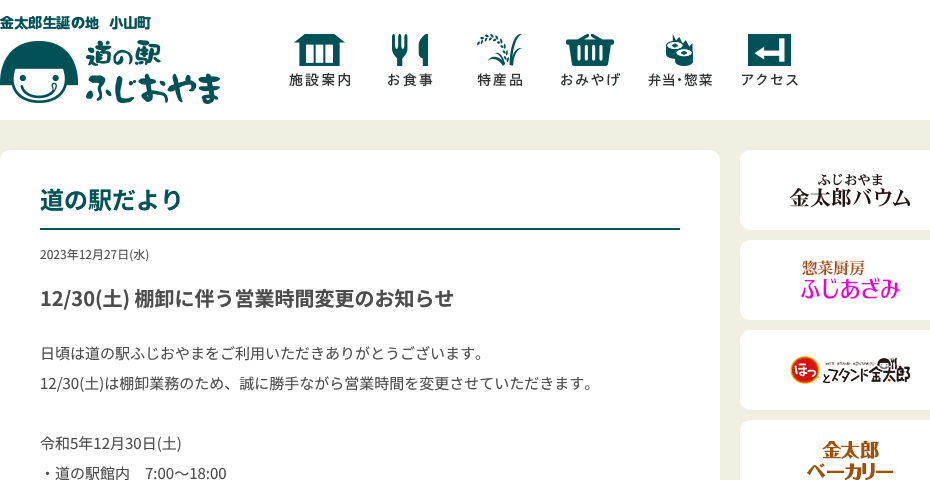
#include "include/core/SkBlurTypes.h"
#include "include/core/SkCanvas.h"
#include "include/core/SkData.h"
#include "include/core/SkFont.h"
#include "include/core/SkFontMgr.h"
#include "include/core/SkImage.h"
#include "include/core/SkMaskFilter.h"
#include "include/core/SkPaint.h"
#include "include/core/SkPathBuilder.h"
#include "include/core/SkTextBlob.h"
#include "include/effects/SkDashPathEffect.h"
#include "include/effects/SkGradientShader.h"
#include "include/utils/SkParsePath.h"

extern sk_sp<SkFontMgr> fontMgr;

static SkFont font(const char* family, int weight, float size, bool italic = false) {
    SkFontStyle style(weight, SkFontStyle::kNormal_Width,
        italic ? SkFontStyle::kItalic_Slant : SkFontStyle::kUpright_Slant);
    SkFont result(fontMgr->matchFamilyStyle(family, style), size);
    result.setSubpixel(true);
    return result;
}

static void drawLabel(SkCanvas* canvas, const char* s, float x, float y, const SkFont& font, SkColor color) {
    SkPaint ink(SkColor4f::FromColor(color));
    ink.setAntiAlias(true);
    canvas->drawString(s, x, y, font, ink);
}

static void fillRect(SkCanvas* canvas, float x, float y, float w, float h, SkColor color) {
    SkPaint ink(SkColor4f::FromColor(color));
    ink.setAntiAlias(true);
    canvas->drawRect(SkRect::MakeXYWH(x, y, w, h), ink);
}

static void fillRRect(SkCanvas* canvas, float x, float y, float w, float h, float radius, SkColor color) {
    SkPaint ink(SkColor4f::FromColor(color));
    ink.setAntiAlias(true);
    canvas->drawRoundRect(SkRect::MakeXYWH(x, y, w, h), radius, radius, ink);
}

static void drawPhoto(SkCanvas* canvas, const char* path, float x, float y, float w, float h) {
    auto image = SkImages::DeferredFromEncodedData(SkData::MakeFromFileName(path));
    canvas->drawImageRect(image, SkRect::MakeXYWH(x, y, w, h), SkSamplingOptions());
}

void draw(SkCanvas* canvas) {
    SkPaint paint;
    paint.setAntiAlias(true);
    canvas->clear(0xFFF0EFE2);
    fillRect(canvas, 0, 0, 930, 120, 0xFFFFFFFF);
    drawPhoto(canvas, "assets/img1.png", 0, 16, 220, 88);
    drawPhoto(canvas, "assets/img2.png", 289, 34, 61, 53);
    drawPhoto(canvas, "assets/img3.png", 388, 34, 45, 53);
    drawPhoto(canvas, "assets/img4.png", 477, 34, 45, 53);
    drawPhoto(canvas, "assets/img5.png", 561, 34, 60, 52);
    drawPhoto(canvas, "assets/img6.png", 648, 34, 64, 53);
    drawPhoto(canvas, "assets/img7.png", 742, 34, 56, 52);
    fillRRect(canvas, 0, 150, 720, 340, 10, 0xFFFFFFFF);
    fillRect(canvas, 40, 228, 640, 2, 0xFF005357);
    SkFont font1 = font("Noto Sans JP", 700, 24);
    drawLabel(canvas, "道の駅だより", 40, 209, font1, 0xFF005357);
    SkFont font2 = font("Noto Sans JP", 400, 12);
    drawLabel(canvas, "2023年12月27日(水)", 40, 259, font2, 0xFF4C4C4C);
    SkFont font3 = font("Noto Sans JP", 700, 20);
    drawLabel(canvas, "12/30(土) 棚卸に伴う営業時間変更のお知らせ", 40, 306, font3, 0xFF4C4C4C);
    SkFont font4 = font("Noto Sans JP", 400, 15);
    drawLabel(canvas, "日頃は道の駅ふじおやまをご利用いただきありがとうございます。", 40, 359, font4, 0xFF4C4C4C);
    drawLabel(canvas, "12/30(土)は棚卸業務のため、誠に勝手ながら営業時間を変更させていただきます。", 40, 389, font4, 0xFF4C4C4C);
    drawLabel(canvas, "令和5年12月30日(土)", 40, 449, font4, 0xFF4C4C4C);
    drawLabel(canvas, "・道の駅館内　7:00～18:00", 40, 479, font4, 0xFF4C4C4C);
    fillRRect(canvas, 740, 150, 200, 80, 10, 0xFFFFFFFF);
    drawPhoto(canvas, "assets/img8.png", 790, 174, 120, 33);
    fillRRect(canvas, 740, 240, 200, 80, 10, 0xFFFFFFFF);
    drawPhoto(canvas, "assets/img9.png", 800, 260, 100, 39);
    fillRRect(canvas, 740, 330, 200, 80, 10, 0xFFFFFFFF);
    drawPhoto(canvas, "assets/img10.png", 790, 356, 120, 28);
    fillRRect(canvas, 740, 420, 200, 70, 10, 0xFFFFFFFF);
    drawPhoto(canvas, "assets/img11.png", 807, 440, 87, 40);
}
